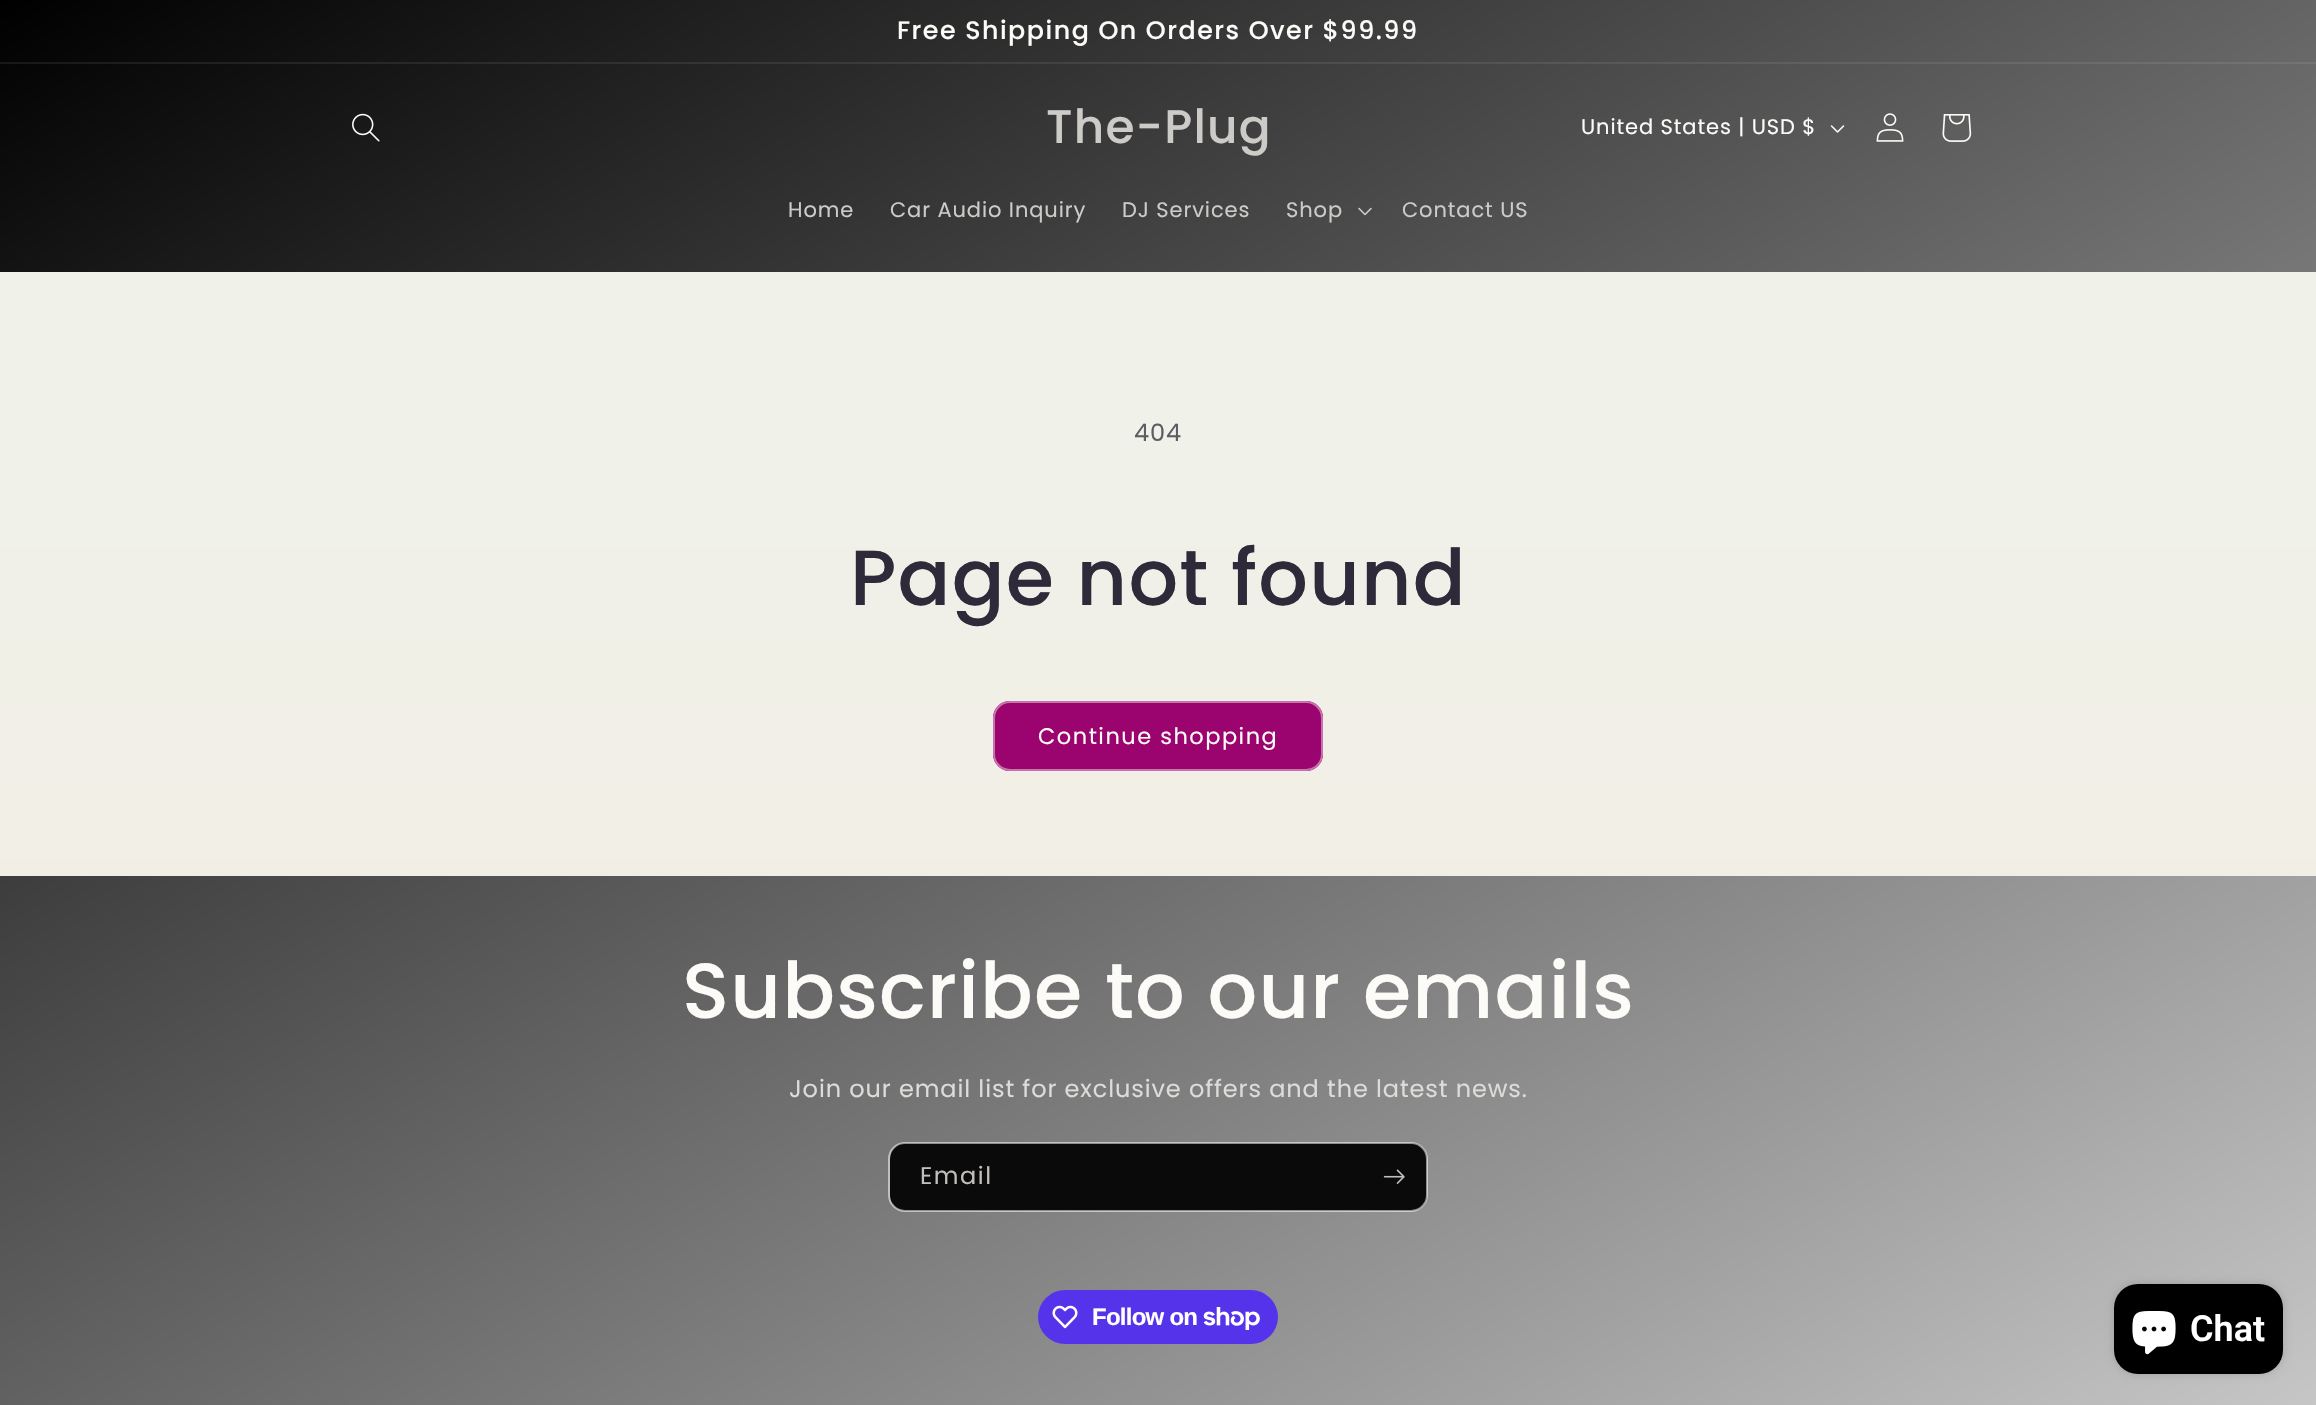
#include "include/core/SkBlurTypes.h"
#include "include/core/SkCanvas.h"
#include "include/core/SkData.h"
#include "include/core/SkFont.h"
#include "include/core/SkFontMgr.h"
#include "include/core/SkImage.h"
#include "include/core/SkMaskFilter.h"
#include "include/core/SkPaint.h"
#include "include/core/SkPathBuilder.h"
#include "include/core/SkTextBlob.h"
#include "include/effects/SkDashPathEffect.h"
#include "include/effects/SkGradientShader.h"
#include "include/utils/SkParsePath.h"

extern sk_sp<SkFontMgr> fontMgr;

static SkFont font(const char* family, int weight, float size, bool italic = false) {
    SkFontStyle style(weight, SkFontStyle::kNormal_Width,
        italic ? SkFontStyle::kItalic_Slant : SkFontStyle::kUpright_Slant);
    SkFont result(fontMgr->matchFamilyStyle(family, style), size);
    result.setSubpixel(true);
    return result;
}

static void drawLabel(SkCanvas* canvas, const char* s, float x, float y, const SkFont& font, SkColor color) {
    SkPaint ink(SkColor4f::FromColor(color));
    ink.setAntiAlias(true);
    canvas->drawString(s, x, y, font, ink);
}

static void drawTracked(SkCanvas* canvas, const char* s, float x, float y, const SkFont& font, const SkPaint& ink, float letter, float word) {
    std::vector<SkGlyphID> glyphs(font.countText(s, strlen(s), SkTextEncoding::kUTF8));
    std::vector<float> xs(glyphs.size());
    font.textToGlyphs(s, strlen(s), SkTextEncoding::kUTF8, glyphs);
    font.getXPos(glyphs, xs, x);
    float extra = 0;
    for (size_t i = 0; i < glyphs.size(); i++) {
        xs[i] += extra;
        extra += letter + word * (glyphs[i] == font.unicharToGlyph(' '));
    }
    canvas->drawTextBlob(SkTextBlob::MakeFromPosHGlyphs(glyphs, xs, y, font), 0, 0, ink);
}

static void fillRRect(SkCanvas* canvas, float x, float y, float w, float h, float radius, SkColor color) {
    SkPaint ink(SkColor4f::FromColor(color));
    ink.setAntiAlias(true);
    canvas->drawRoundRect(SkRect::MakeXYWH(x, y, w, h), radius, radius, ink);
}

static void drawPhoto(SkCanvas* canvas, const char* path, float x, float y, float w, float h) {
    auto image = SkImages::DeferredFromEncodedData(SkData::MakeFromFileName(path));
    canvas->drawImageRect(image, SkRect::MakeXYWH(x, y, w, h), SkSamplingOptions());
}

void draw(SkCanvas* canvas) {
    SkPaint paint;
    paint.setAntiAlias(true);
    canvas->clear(0xFFFFFFFF);
    {
        const SkColor colors[] = {0xFFF0F4EC, 0xFFF1EBE2};
        const float stops[] = {0, 1};
        const SkPoint ends[] = {{1158, 0}, {1158, 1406}};
        paint.setShader(SkGradientShader::MakeLinear(ends, colors, stops, 2, SkTileMode::kClamp));
        paint.setAlpha(255);
    }
    canvas->drawRect(SkRect::MakeXYWH(0, 272, 2316, 604), paint);
    {
        const SkColor colors[] = {0xFFC6C6C6, 0xFF000000};
        const float stops[] = {0, 1};
        const SkPoint ends[] = {{1799, 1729}, {517, -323}};
        paint.setShader(SkGradientShader::MakeLinear(ends, colors, stops, 2, SkTileMode::kClamp));
        paint.setAlpha(255);
    }
    canvas->drawRect(SkRect::MakeXYWH(0, 0, 2316, 62), paint);
    {
        const SkColor colors[] = {0xFFCACACA, 0xFF141414};
        const float stops[] = {0, 1};
        const SkPoint ends[] = {{1799, 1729}, {517, -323}};
        paint.setShader(SkGradientShader::MakeLinear(ends, colors, stops, 2, SkTileMode::kClamp));
        paint.setAlpha(255);
    }
    canvas->drawRect(SkRect::MakeXYWH(0, 62, 2316, 1), paint);
    SkFont font1 = font("Poppins", 500, 25.35f);
    paint.setShader(nullptr);
    paint.setColor(0xFFFDFBF7);
    drawTracked(canvas, "Free Shipping On Orders Over $99.99", 897, 39, font1, paint, 1.5f, 0);
    {
        const SkColor colors[] = {0xFFC6C6C6, 0xFF000000};
        const float stops[] = {0, 1};
        const SkPoint ends[] = {{1799, 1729}, {517, -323}};
        paint.setShader(SkGradientShader::MakeLinear(ends, colors, stops, 2, SkTileMode::kClamp));
        paint.setAlpha(255);
    }
    canvas->drawRect(SkRect::MakeXYWH(0, 64, 2316, 208), paint);
    {
        const SkColor colors[] = {0xFFCACACA, 0xFF141414};
        const float stops[] = {0, 1};
        const SkPoint ends[] = {{1799, 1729}, {517, -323}};
        paint.setShader(SkGradientShader::MakeLinear(ends, colors, stops, 2, SkTileMode::kClamp));
        paint.setAlpha(255);
    }
    canvas->drawRect(SkRect::MakeXYWH(0, 63, 2316, 1), paint);
    drawPhoto(canvas, "assets/img1.png", 352, 113, 28, 29);
    SkFont font2 = font("Poppins", 500, 47);
    paint.setShader(nullptr);
    paint.setColor(0xFFCDCBC8);
    drawTracked(canvas, "The-Plug", 1046, 143, font2, paint, 1.2f, 0);
    SkFont font3 = font("Poppins", 400, 21);
    paint.setColor(0xFFFDFBF7);
    drawTracked(canvas, "United States | USD $", 1581, 134, font3, paint, 0.9f, 0);
    drawPhoto(canvas, "assets/img2.png", 1830, 125, 15, 8);
    drawPhoto(canvas, "assets/img3.png", 1876, 113, 28, 29);
    drawPhoto(canvas, "assets/img4.png", 1942, 114, 30, 28);
    paint.setColor(0xFFCDCBC8);
    drawTracked(canvas, "Home", 788, 217, font3, paint, 0.9f, 0);
    drawTracked(canvas, "Car Audio Inquiry", 890, 217, font3, paint, 0.9f, 0);
    drawTracked(canvas, "DJ Services", 1122, 217, font3, paint, 0.9f, 0);
    drawTracked(canvas, "Shop", 1286, 217, font3, paint, 0.9f, 0);
    drawPhoto(canvas, "assets/img5.png", 1358, 207, 14, 9);
    drawTracked(canvas, "Contact US", 1402, 217, font3, paint, 0.9f, 0);
    SkFont font4 = font("Poppins", 400, 24);
    paint.setColor(0xFF5F5C65);
    drawTracked(canvas, "404", 1134, 441, font4, paint, 0.9f, 0);
    SkFont font5 = font("Poppins", 500, 78);
    paint.setColor(0xFF2E2A39);
    drawTracked(canvas, "Page not found", 850, 605, font5, paint, 1.2f, 0);
    fillRRect(canvas, 993, 701, 330, 70, 17, 0xFF9B046F);
    paint.setStroke(true);
    paint.setStrokeWidth(2);
    paint.setColor(0xFF9B046F);
    canvas->drawRoundRect(SkRect::MakeXYWH(994, 702, 328, 68), 16, 16, paint);
    paint.setColor(0x73FDFBF7);
    canvas->drawRoundRect(SkRect::MakeXYWH(994, 702, 328, 68), 16, 16, paint);
    SkFont font6 = font("Poppins", 400, 22.5f);
    paint.setStroke(false);
    paint.setColor(0xFFFDFBF7);
    drawTracked(canvas, "Continue shopping", 1038, 744, font6, paint, 1.5f, 0);
    {
        const SkColor colors[] = {0xFFC6C6C6, 0xFF000000};
        const float stops[] = {0, 1};
        const SkPoint ends[] = {{1799, 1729}, {517, -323}};
        paint.setShader(SkGradientShader::MakeLinear(ends, colors, stops, 2, SkTileMode::kClamp));
        paint.setAlpha(255);
    }
    canvas->drawRect(SkRect::MakeXYWH(0, 876, 2316, 348), paint);
    paint.setShader(nullptr);
    paint.setColor(0xFFFDFBF7);
    drawTracked(canvas, "Subscribe to our emails", 682, 1018, font5, paint, 1.2f, 0);
    paint.setColor(0xFFDDDCD9);
    drawTracked(canvas, "Join our email list for exclusive offers and the latest news.", 789, 1097, font4, paint, 0.9f, 0);
    fillRRect(canvas, 890, 1143, 537, 68, 15, 0xFF0B0A0B);
    paint.setStroke(true);
    paint.setColor(0x8CFDFBF7);
    canvas->drawRoundRect(SkRect::MakeXYWH(889, 1143, 538, 68), 16, 16, paint);
    paint.setStroke(false);
    paint.setColor(0xFFC1BFBC);
    drawTracked(canvas, "Email", 920, 1184, font4, paint, 1.5f, 0);
    drawPhoto(canvas, "assets/img6.png", 1383, 1169, 22, 15);
    {
        const SkColor colors[] = {0xFFC6C6C6, 0xFF000000};
        const float stops[] = {0, 1};
        const SkPoint ends[] = {{1799, 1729}, {517, -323}};
        paint.setShader(SkGradientShader::MakeLinear(ends, colors, stops, 2, SkTileMode::kClamp));
        paint.setAlpha(255);
    }
    canvas->drawRect(SkRect::MakeXYWH(0, 1224, 2316, 181), paint);
    fillRRect(canvas, 1038, 1290, 240, 54, 27, 0xFF5433EB);
    drawPhoto(canvas, "assets/img7.png", 1052, 1305, 26, 24);
    SkFont font7 = font("Liberation Sans", 700, 24);
    paint.setShader(nullptr);
    paint.setColor(0xFFFFFFFF);
    drawTracked(canvas, "Follow on", 1092, 1325, font7, paint, -0.75f, 0);
    drawPhoto(canvas, "assets/img8.png", 1203, 1307, 57, 23);
    paint.setColor(0x26000000);
    paint.setMaskFilter(SkMaskFilter::MakeBlur(kNormal_SkBlurStyle, 4));
    canvas->drawRoundRect(SkRect::MakeXYWH(2114, 1284, 169, 90), 24, 24, paint);
    paint.setMaskFilter(nullptr);
    fillRRect(canvas, 2114, 1284, 169, 90, 24, 0xFF000000);
    drawPhoto(canvas, "assets/img9.png", 2132, 1311, 44, 44);
    SkFont font8 = font("Roboto", 600, 36);
    drawLabel(canvas, "Chat", 2190, 1341, font8, 0xFFFFFFFF);
}
